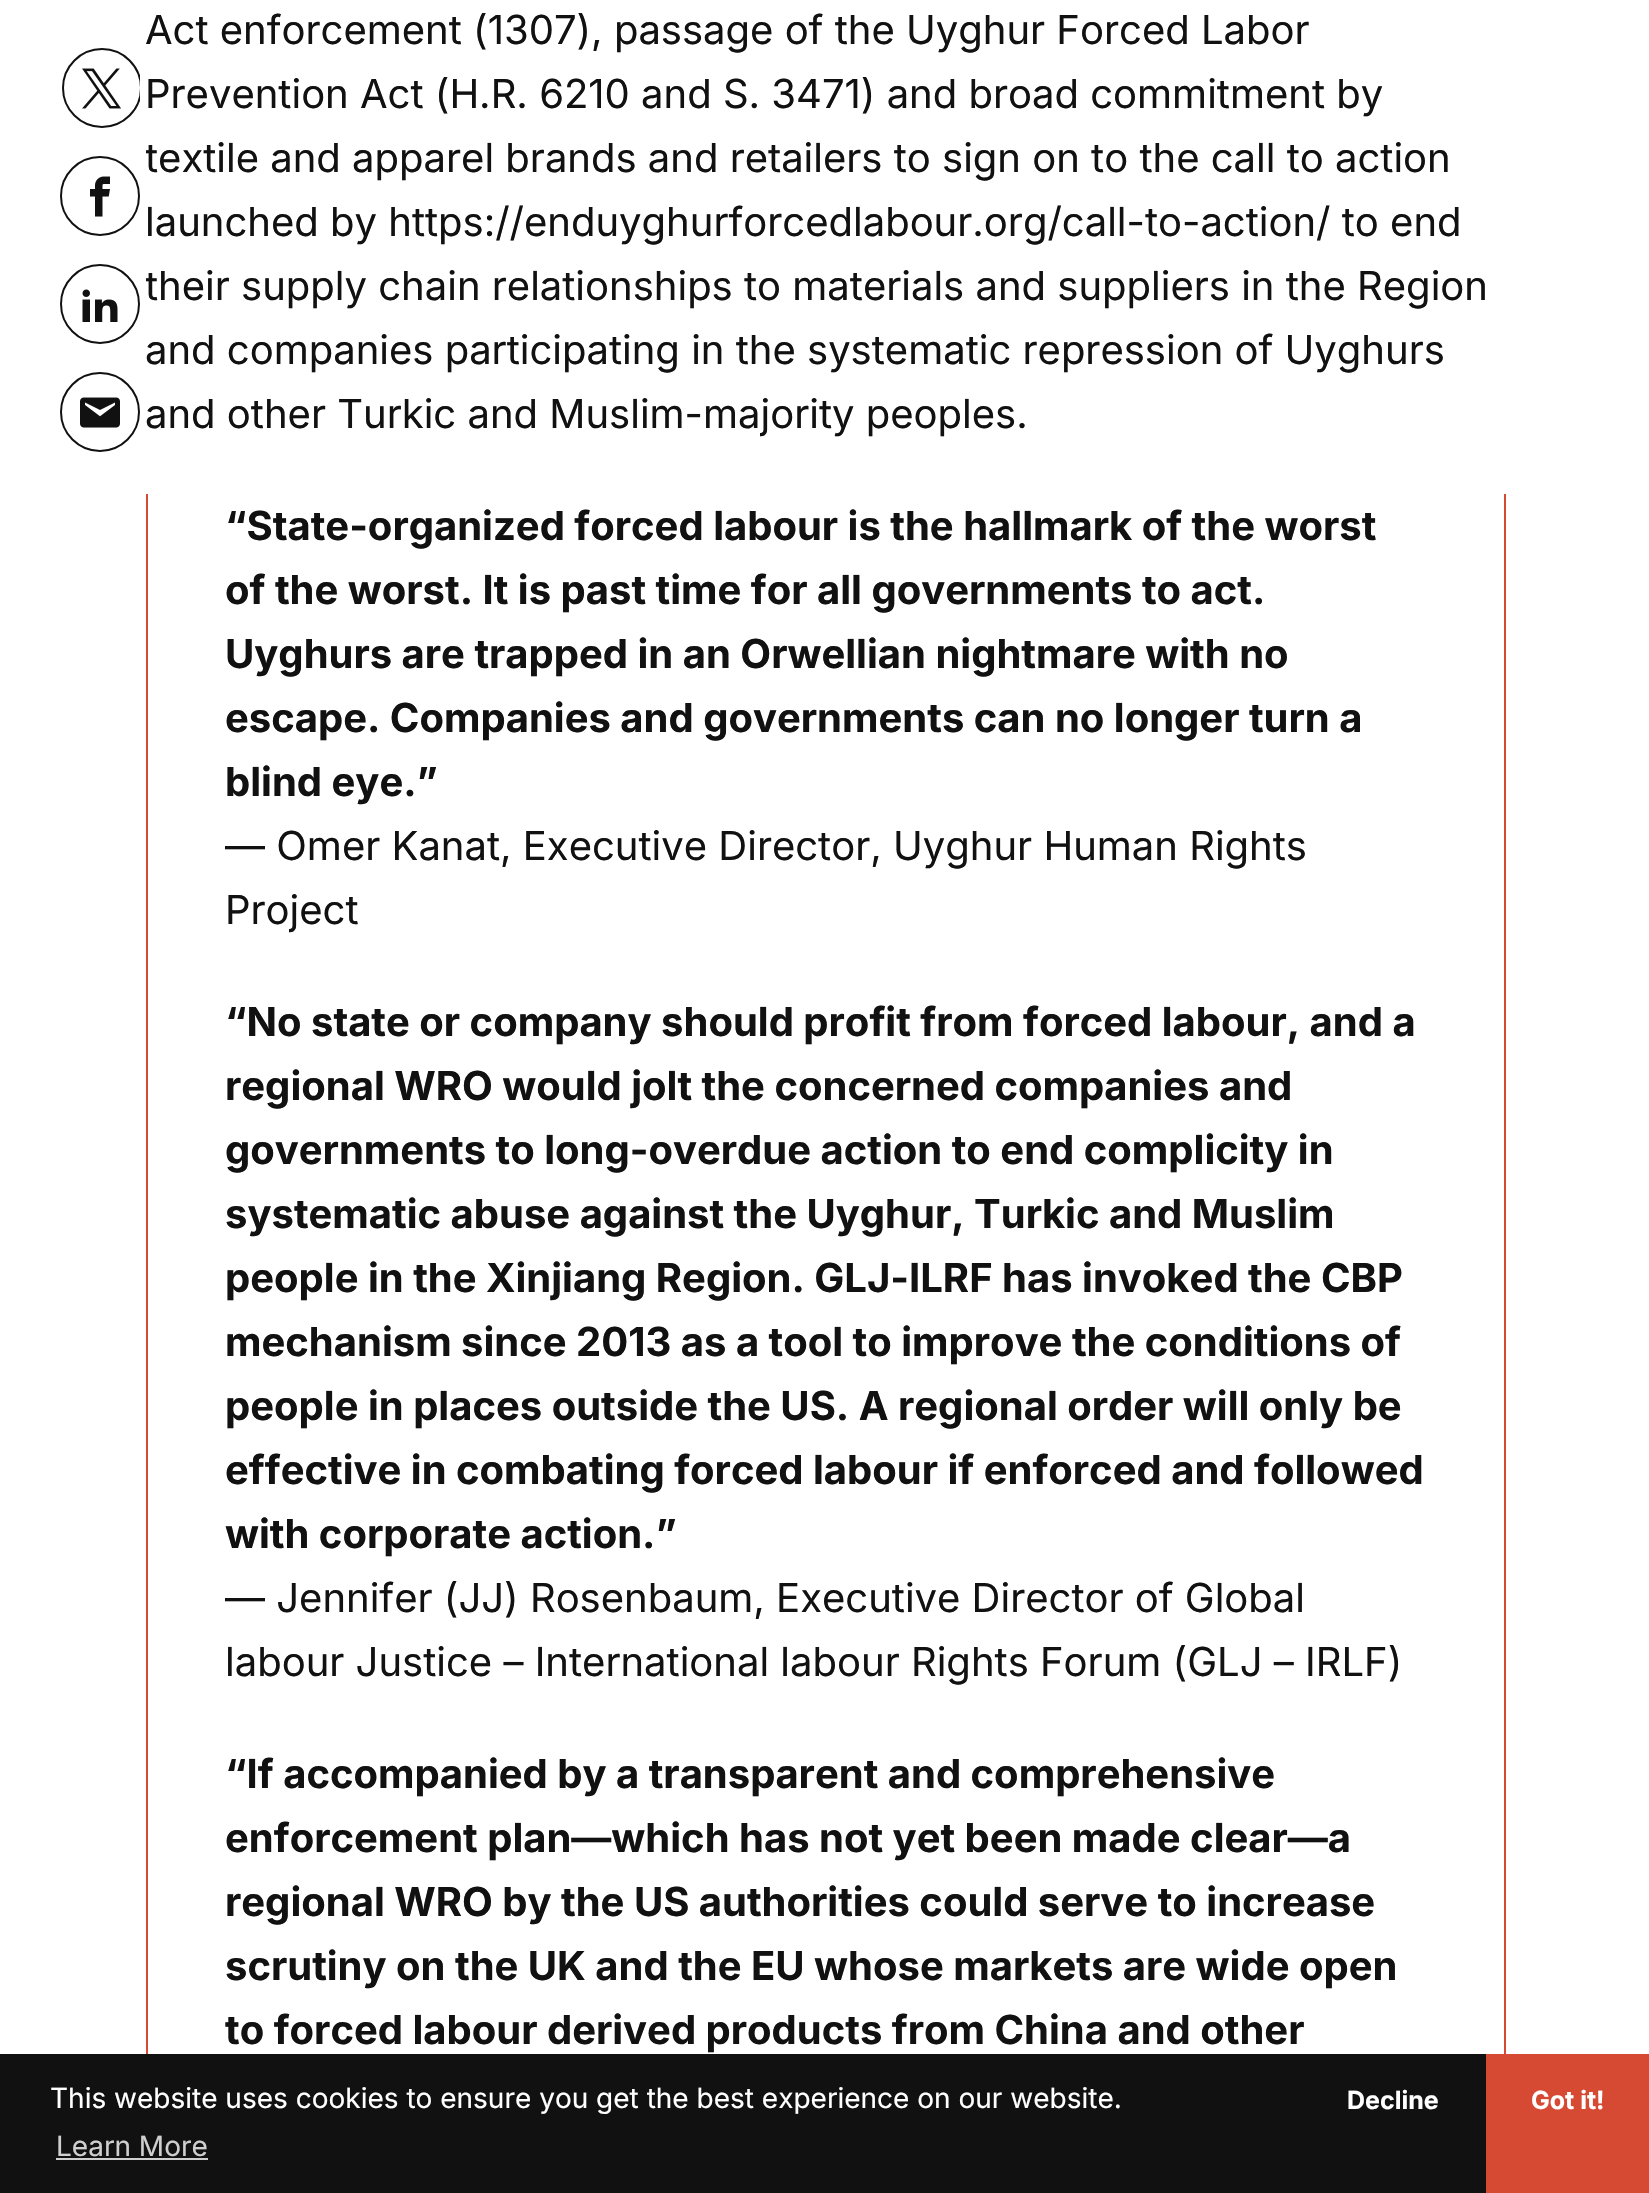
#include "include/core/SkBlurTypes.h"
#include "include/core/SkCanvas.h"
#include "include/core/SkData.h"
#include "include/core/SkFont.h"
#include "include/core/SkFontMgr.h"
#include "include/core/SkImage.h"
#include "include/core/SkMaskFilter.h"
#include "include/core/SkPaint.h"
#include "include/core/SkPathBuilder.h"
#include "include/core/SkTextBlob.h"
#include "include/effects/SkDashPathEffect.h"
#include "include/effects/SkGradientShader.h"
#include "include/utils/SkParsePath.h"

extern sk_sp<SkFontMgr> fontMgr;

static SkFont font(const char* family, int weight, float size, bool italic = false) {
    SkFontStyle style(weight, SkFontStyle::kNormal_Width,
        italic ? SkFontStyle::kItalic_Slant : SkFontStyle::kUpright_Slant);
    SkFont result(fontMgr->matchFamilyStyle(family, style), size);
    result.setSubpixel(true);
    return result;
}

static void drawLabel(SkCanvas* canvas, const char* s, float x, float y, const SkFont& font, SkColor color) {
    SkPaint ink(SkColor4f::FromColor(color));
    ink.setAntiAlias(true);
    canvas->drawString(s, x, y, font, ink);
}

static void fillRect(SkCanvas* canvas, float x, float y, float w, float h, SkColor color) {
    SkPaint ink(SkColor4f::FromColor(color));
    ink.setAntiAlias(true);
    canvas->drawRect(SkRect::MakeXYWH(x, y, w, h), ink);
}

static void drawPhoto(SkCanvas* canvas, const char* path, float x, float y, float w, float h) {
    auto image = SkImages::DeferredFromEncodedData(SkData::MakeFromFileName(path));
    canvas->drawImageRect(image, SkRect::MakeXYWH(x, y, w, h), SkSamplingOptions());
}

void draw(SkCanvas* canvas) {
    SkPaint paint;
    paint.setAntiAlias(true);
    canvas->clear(0xFFFFFFFF);
    canvas->save();
    canvas->clipRect(SkRect::MakeXYWH(60, 48, 80, 404));
    paint.setStroke(true);
    paint.setStrokeWidth(2);
    paint.setColor(0xFF111111);
    canvas->drawCircle(102, 88, 39, paint);
    canvas->restore();
    drawPhoto(canvas, "assets/img1.png", 82, 68, 39, 41);
    canvas->drawCircle(100, 196, 39, paint);
    drawPhoto(canvas, "assets/img2.png", 90, 176, 20, 41);
    canvas->drawCircle(100, 304, 39, paint);
    drawPhoto(canvas, "assets/img3.png", 82, 289, 36, 33);
    canvas->drawCircle(100, 412, 39, paint);
    drawPhoto(canvas, "assets/img4.png", 80, 397, 40, 31);
    SkFont font1 = font("Inter", 400, 40);
    drawLabel(canvas, "Act enforcement (1307), passage of the Uyghur Forced Labor", 145, 44, font1, 0xFF111111);
    drawLabel(canvas, "Prevention Act (H.R. 6210 and S. 3471) and broad commitment by", 145, 108, font1, 0xFF111111);
    canvas->save();
    canvas->clipRect(SkRect::MakeXYWH(146, 0, 1360, 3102));
    drawLabel(canvas, "textile and apparel brands and retailers to sign on to the call to action", 145, 172, font1, 0xFF111111);
    canvas->restore();
    drawLabel(canvas, "launched by https://enduyghurforcedlabour.org/call-to-action/ to end", 145, 236, font1, 0xFF111111);
    canvas->save();
    canvas->clipRect(SkRect::MakeXYWH(146, 0, 1360, 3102));
    drawLabel(canvas, "their supply chain relationships to materials and suppliers in the Region", 145, 300, font1, 0xFF111111);
    canvas->restore();
    drawLabel(canvas, "and companies participating in the systematic repression of Uyghurs", 145, 364, font1, 0xFF111111);
    drawLabel(canvas, "and other Turkic and Muslim-majority peoples.", 145, 428, font1, 0xFF111111);
    fillRect(canvas, 1504, 494, 2, 1560, 0xFFD64933);
    fillRect(canvas, 146, 494, 2, 1560, 0xFFD64933);
    SkFont font2 = font("Inter", 700, 40);
    drawLabel(canvas, "“State-organized forced labour is the hallmark of the worst", 225, 540, font2, 0xFF111111);
    drawLabel(canvas, "of the worst. It is past time for all governments to act.", 225, 604, font2, 0xFF111111);
    drawLabel(canvas, "Uyghurs are trapped in an Orwellian nightmare with no", 225, 668, font2, 0xFF111111);
    drawLabel(canvas, "escape. Companies and governments can no longer turn a", 225, 732, font2, 0xFF111111);
    drawLabel(canvas, "blind eye.”", 225, 796, font2, 0xFF111111);
    drawLabel(canvas, "— Omer Kanat, Executive Director, Uyghur Human Rights", 225, 860, font1, 0xFF111111);
    drawLabel(canvas, "Project", 225, 924, font1, 0xFF111111);
    drawLabel(canvas, "“No state or company should profit from forced labour, and a", 225, 1036, font2, 0xFF111111);
    drawLabel(canvas, "regional WRO would jolt the concerned companies and", 225, 1100, font2, 0xFF111111);
    drawLabel(canvas, "governments to long-overdue action to end complicity in", 225, 1164, font2, 0xFF111111);
    drawLabel(canvas, "systematic abuse against the Uyghur, Turkic and Muslim", 225, 1228, font2, 0xFF111111);
    drawLabel(canvas, "people in the Xinjiang Region. GLJ-ILRF has invoked the CBP", 225, 1292, font2, 0xFF111111);
    drawLabel(canvas, "mechanism since 2013 as a tool to improve the conditions of", 225, 1356, font2, 0xFF111111);
    drawLabel(canvas, "people in places outside the US. A regional order will only be", 225, 1420, font2, 0xFF111111);
    drawLabel(canvas, "effective in combating forced labour if enforced and followed", 225, 1484, font2, 0xFF111111);
    drawLabel(canvas, "with corporate action.”", 225, 1548, font2, 0xFF111111);
    drawLabel(canvas, "— Jennifer (JJ) Rosenbaum, Executive Director of Global", 225, 1612, font1, 0xFF111111);
    drawLabel(canvas, "labour Justice – International labour Rights Forum (GLJ – IRLF)", 225, 1676, font1, 0xFF111111);
    drawLabel(canvas, "“If accompanied by a transparent and comprehensive", 225, 1788, font2, 0xFF111111);
    drawLabel(canvas, "enforcement plan—which has not yet been made clear—a", 225, 1852, font2, 0xFF111111);
    drawLabel(canvas, "regional WRO by the US authorities could serve to increase", 225, 1916, font2, 0xFF111111);
    drawLabel(canvas, "scrutiny on the UK and the EU whose markets are wide open", 225, 1980, font2, 0xFF111111);
    drawLabel(canvas, "to forced labour derived products from China and other", 225, 2044, font2, 0xFF111111);
    fillRect(canvas, 0, 2054, 1486, 139, 0xFF111111);
    SkFont font3 = font("Inter", 400, 28);
    drawLabel(canvas, "This website uses cookies to ensure you get the best experience on our website.", 50, 2108, font3, 0xFFFFFFFF);
    drawLabel(canvas, "Learn More", 56, 2156, font3, 0xFFCFCFCF);
    fillRect(canvas, 56, 2158, 152, 2, 0xFFCFCFCF);
    SkFont font4 = font("Inter", 700, 25);
    drawLabel(canvas, "Decline", 1347, 2109, font4, 0xFFFFFFFF);
    fillRect(canvas, 1486, 2054, 163, 139, 0xFFD64933);
    drawLabel(canvas, "Got it!", 1531, 2109, font4, 0xFFFFFFFF);
}
